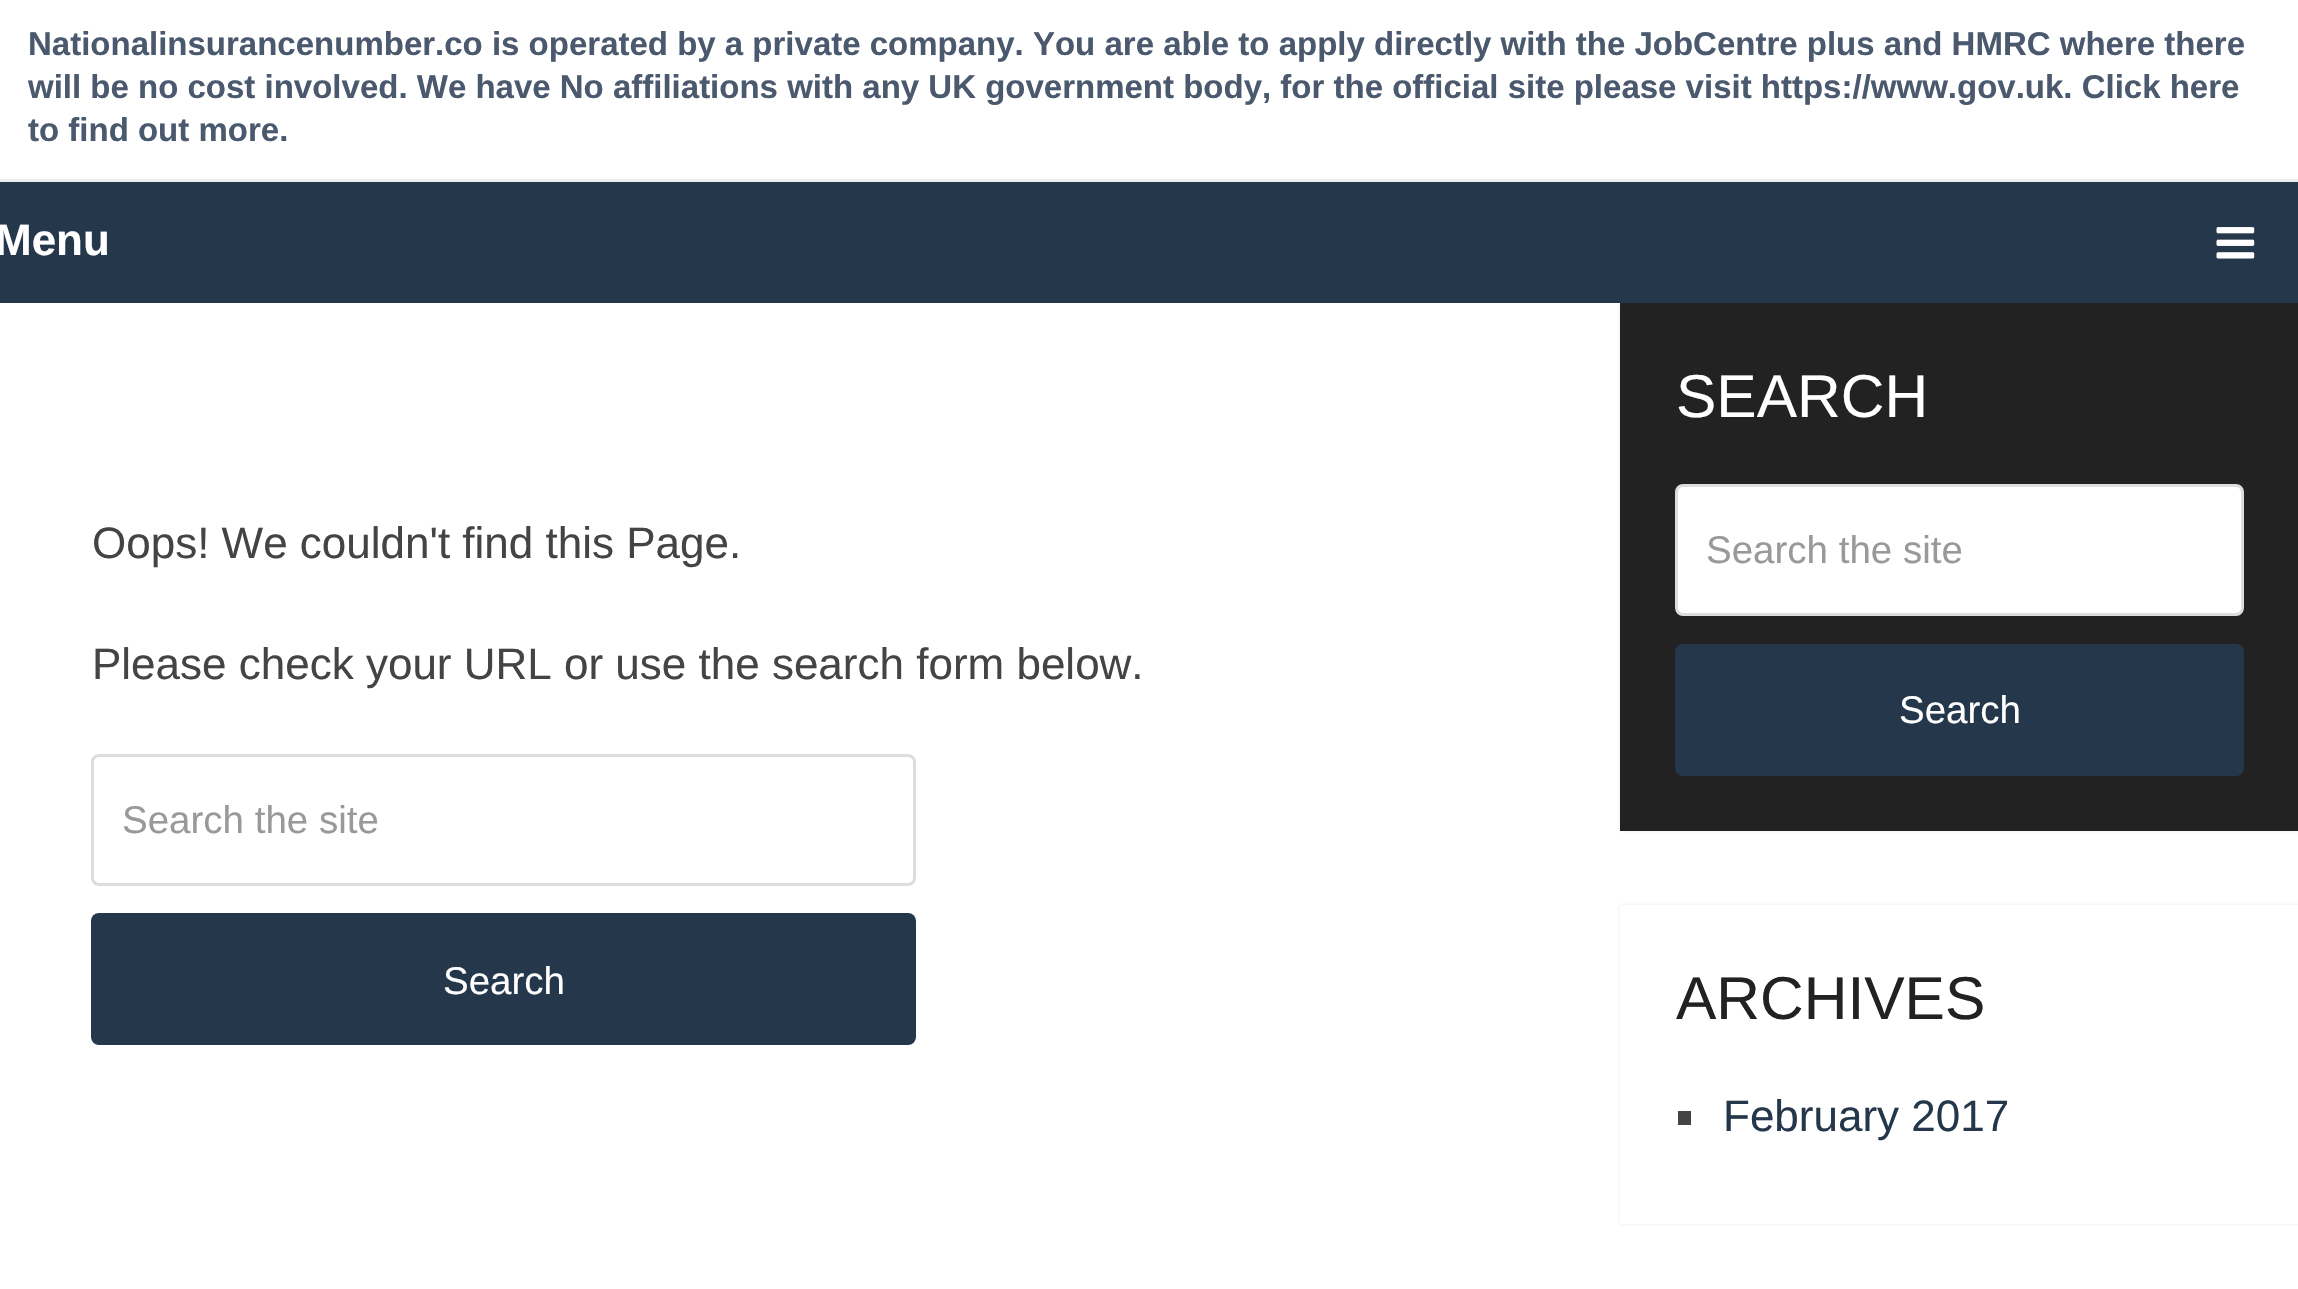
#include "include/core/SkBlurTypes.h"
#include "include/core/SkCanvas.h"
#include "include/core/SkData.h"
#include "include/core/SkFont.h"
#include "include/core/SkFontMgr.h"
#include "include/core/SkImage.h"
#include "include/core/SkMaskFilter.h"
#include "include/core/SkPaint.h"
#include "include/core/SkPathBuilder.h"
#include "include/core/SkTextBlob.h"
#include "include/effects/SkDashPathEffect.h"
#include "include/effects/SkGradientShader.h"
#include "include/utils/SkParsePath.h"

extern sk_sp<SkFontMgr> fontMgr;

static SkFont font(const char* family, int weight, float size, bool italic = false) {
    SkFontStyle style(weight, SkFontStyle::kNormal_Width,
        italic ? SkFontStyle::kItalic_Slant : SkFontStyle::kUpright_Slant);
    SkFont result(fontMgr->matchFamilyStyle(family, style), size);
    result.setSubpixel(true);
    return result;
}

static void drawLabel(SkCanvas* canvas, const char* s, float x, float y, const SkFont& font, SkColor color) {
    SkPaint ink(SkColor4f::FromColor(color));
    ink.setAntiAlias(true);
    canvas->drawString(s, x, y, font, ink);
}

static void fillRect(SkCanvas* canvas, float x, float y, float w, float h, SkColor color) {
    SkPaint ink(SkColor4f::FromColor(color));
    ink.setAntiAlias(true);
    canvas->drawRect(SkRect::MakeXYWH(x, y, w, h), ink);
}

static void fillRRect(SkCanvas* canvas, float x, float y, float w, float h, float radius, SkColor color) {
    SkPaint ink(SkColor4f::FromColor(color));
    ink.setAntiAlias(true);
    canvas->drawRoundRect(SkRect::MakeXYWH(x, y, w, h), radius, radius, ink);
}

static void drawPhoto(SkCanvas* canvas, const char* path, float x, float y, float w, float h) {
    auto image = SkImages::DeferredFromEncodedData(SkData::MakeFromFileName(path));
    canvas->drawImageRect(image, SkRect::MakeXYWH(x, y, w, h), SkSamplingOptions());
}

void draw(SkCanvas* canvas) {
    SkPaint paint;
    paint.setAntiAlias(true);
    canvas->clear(0xFFFFFFFF);
    fillRect(canvas, 0, 179, 2298, 3, 0xFFEDEDED);
    SkFont font1 = font("Liberation Sans", 700, 33);
    drawLabel(canvas, "Nationalinsurancenumber.co is operated by a private company. You are able to apply directly with the JobCentre plus and HMRC where there", 28, 55, font1, 0xFF4A596D);
    drawLabel(canvas, "will be no cost involved. We have No affiliations with any UK government body, for the official site please visit https://www.gov.uk. Click here", 28, 98, font1, 0xFF4A596D);
    drawLabel(canvas, "to find out more.", 28, 141, font1, 0xFF4A596D);
    paint.setColor(0x1A323232);
    paint.setMaskFilter(SkMaskFilter::MakeBlur(kNormal_SkBlurStyle, 1.5f));
    canvas->drawRect(SkRect::MakeXYWH(1620, 303, 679, 528), paint);
    paint.setMaskFilter(nullptr);
    fillRect(canvas, 0, 182, 2298, 121, 0xFF25374B);
    SkFont font2 = font("Liberation Sans", 700, 44);
    drawLabel(canvas, "Menu", -5, 255, font2, 0xFFFFFFFF);
    drawPhoto(canvas, "assets/img1.png", 2216, 227, 39, 32);
    SkFont font3 = font("Liberation Sans", 400, 44);
    drawLabel(canvas, "Oops! We couldn't find this Page.", 92, 558, font3, 0xFF444444);
    drawLabel(canvas, "Please check your URL or use the search form below.", 92, 679, font3, 0xFF444444);
    paint.setStroke(true);
    paint.setStrokeWidth(3);
    paint.setColor(0xFFDDDDDD);
    canvas->drawRoundRect(SkRect::MakeXYWH(92.5f, 755.5f, 822, 129), 6.5f, 6.5f, paint);
    SkFont font4 = font("Liberation Sans", 400, 38.5f);
    drawLabel(canvas, "Search the site", 122, 833, font4, 0xFF999999);
    fillRRect(canvas, 91, 913, 825, 132, 8, 0xFF25374B);
    drawLabel(canvas, "Search", 443, 994, font4, 0xFFFFFFFF);
    fillRect(canvas, 1620, 303, 678, 528, 0xFF222222);
    SkFont font5 = font("Liberation Sans", 400, 60.5f);
    drawLabel(canvas, "SEARCH", 1676, 417, font5, 0xFFFFFFFF);
    paint.setStroke(false);
    paint.setColor(0xFFFFFFFF);
    canvas->drawRoundRect(SkRect::MakeXYWH(1676.5f, 485.5f, 566, 129), 6.5f, 6.5f, paint);
    paint.setStroke(true);
    paint.setColor(0xFFDDDDDD);
    canvas->drawRoundRect(SkRect::MakeXYWH(1676.5f, 485.5f, 566, 129), 6.5f, 6.5f, paint);
    drawLabel(canvas, "Search the site", 1706, 563, font4, 0xFF999999);
    fillRRect(canvas, 1675, 644, 569, 132, 8, 0xFF25374B);
    drawLabel(canvas, "Search", 1899, 723, font4, 0xFFFFFFFF);
    paint.setStroke(false);
    paint.setColor(0x1A323232);
    paint.setMaskFilter(SkMaskFilter::MakeBlur(kNormal_SkBlurStyle, 1.5f));
    canvas->drawRect(SkRect::MakeXYWH(1620, 905, 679, 319), paint);
    paint.setMaskFilter(nullptr);
    fillRect(canvas, 1620, 905, 678, 319, 0xFFFFFFFF);
    drawLabel(canvas, "ARCHIVES", 1676, 1019, font5, 0xFF222222);
    fillRect(canvas, 1678, 1111, 13, 14, 0xFF444444);
    drawLabel(canvas, "February 2017", 1723, 1131, font3, 0xFF25374B);
}
